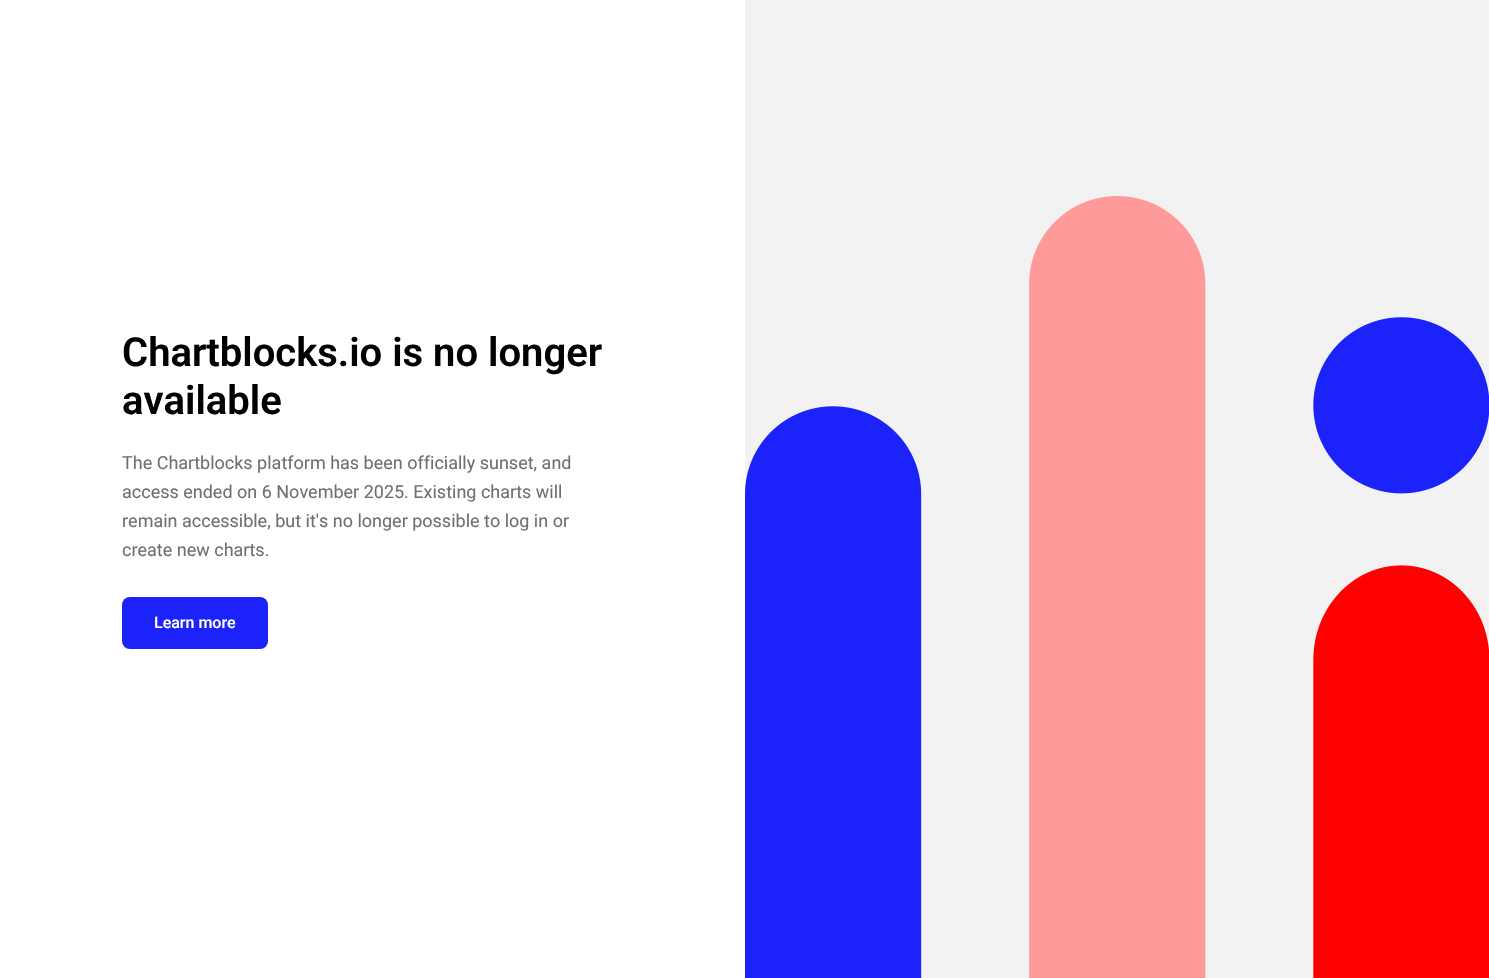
#include "include/core/SkBlurTypes.h"
#include "include/core/SkCanvas.h"
#include "include/core/SkData.h"
#include "include/core/SkFont.h"
#include "include/core/SkFontMgr.h"
#include "include/core/SkImage.h"
#include "include/core/SkMaskFilter.h"
#include "include/core/SkPaint.h"
#include "include/core/SkPathBuilder.h"
#include "include/core/SkTextBlob.h"
#include "include/effects/SkDashPathEffect.h"
#include "include/effects/SkGradientShader.h"
#include "include/utils/SkParsePath.h"

extern sk_sp<SkFontMgr> fontMgr;

static SkFont font(const char* family, int weight, float size, bool italic = false) {
    SkFontStyle style(weight, SkFontStyle::kNormal_Width,
        italic ? SkFontStyle::kItalic_Slant : SkFontStyle::kUpright_Slant);
    SkFont result(fontMgr->matchFamilyStyle(family, style), size);
    result.setSubpixel(true);
    return result;
}

static void drawLabel(SkCanvas* canvas, const char* s, float x, float y, const SkFont& font, SkColor color) {
    SkPaint ink(SkColor4f::FromColor(color));
    ink.setAntiAlias(true);
    canvas->drawString(s, x, y, font, ink);
}

static void fillRect(SkCanvas* canvas, float x, float y, float w, float h, SkColor color) {
    SkPaint ink(SkColor4f::FromColor(color));
    ink.setAntiAlias(true);
    canvas->drawRect(SkRect::MakeXYWH(x, y, w, h), ink);
}

static void fillRRect(SkCanvas* canvas, float x, float y, float w, float h, float radius, SkColor color) {
    SkPaint ink(SkColor4f::FromColor(color));
    ink.setAntiAlias(true);
    canvas->drawRoundRect(SkRect::MakeXYWH(x, y, w, h), radius, radius, ink);
}

static void drawPhoto(SkCanvas* canvas, const char* path, float x, float y, float w, float h) {
    auto image = SkImages::DeferredFromEncodedData(SkData::MakeFromFileName(path));
    canvas->drawImageRect(image, SkRect::MakeXYWH(x, y, w, h), SkSamplingOptions());
}

void draw(SkCanvas* canvas) {
    SkPaint paint;
    paint.setAntiAlias(true);
    canvas->clear(0xFFFFFFFF);
    SkFont font1 = font("Roboto", 600, 40);
    drawLabel(canvas, "Chartblocks.io is no longer", 122, 366, font1, 0xFF000000);
    drawLabel(canvas, "available", 122, 414, font1, 0xFF000000);
    SkFont font2 = font("Roboto", 400, 18);
    drawLabel(canvas, "The Chartblocks platform has been officially sunset, and", 122, 469, font2, 0xFF6F6F6F);
    drawLabel(canvas, "access ended on 6 November 2025. Existing charts will", 122, 498, font2, 0xFF6F6F6F);
    drawLabel(canvas, "remain accessible, but it's no longer possible to log in or", 122, 527, font2, 0xFF6F6F6F);
    drawLabel(canvas, "create new charts.", 122, 556, font2, 0xFF6F6F6F);
    fillRRect(canvas, 122, 597, 146, 52, 8, 0xFF1B22FA);
    SkFont font3 = font("Roboto", 500, 16);
    drawLabel(canvas, "Learn more", 154, 628, font3, 0xFFFFFFFF);
    fillRect(canvas, 745, 0, 744, 978, 0xFFF2F2F2);
    drawPhoto(canvas, "assets/img1.png", 745, 196, 744, 782);
}
